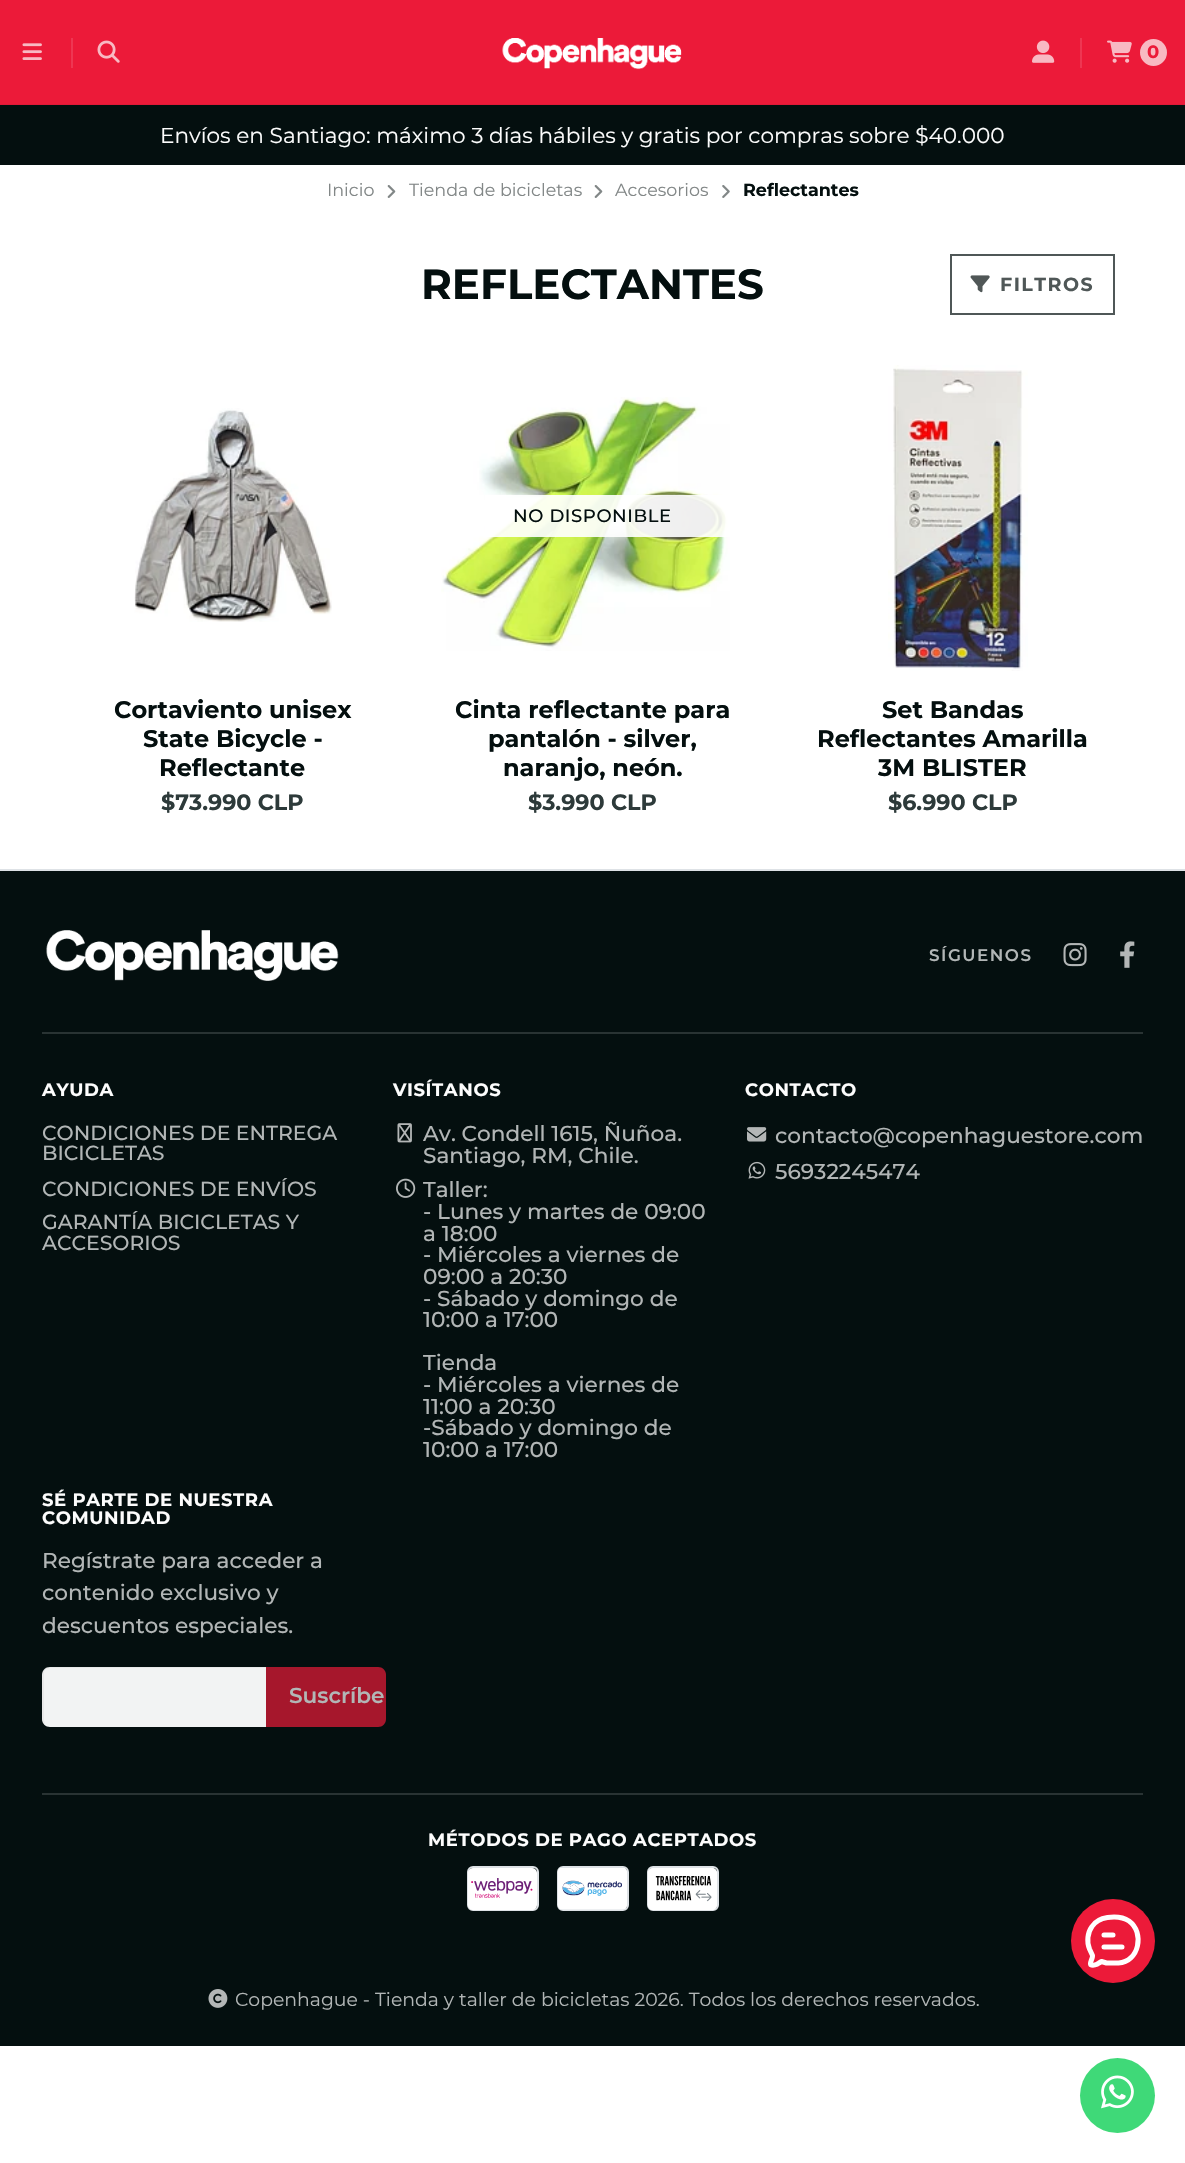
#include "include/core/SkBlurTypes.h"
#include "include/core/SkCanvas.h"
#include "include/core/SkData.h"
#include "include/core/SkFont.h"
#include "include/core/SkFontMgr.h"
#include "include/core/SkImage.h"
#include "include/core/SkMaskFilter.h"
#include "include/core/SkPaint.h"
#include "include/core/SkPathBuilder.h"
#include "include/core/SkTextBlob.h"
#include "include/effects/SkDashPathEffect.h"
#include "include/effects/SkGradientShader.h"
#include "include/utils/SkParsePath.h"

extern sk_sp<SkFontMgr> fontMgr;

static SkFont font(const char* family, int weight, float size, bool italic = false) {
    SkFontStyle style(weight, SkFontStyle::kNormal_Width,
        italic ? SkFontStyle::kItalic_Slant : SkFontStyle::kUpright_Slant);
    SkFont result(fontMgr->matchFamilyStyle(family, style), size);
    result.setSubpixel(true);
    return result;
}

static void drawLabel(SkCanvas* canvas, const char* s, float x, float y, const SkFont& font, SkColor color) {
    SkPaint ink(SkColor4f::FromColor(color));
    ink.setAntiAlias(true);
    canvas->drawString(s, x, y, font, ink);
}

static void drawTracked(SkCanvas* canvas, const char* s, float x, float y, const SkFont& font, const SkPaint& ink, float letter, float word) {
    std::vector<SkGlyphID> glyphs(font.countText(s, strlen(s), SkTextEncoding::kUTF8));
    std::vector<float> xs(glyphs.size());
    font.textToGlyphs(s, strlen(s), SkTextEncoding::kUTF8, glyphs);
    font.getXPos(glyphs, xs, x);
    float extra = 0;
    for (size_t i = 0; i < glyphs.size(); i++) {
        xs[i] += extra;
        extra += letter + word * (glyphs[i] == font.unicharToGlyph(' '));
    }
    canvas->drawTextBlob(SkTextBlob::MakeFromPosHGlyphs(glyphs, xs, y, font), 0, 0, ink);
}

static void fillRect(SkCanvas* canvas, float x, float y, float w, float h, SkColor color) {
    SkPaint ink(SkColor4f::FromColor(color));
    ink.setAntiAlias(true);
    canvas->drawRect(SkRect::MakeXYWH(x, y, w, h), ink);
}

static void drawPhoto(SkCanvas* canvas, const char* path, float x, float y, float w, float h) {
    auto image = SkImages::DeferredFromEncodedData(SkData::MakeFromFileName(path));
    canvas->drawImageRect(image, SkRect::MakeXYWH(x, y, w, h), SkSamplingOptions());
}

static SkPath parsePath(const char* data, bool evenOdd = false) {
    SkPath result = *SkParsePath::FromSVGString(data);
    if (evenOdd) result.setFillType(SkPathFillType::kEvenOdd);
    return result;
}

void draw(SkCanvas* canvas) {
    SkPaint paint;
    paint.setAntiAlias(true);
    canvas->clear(0xFFFFFFFF);
    fillRect(canvas, 0, 0, 1185, 104, 0xFFEC1A39);
    fillRect(canvas, 0, 104, 1185, 1, 0xFFE01937);
    fillRect(canvas, 71, 38, 2, 30, 0xFFEE3652);
    drawPhoto(canvas, "assets/img1.png", 22, 43, 20, 17);
    drawPhoto(canvas, "assets/img2.png", 97, 40, 23, 23);
    drawPhoto(canvas, "assets/img3.png", 502, 38, 180, 32);
    fillRect(canvas, 1080, 38, 2, 30, 0xFFEE3652);
    drawPhoto(canvas, "assets/img4.png", 1032, 40, 23, 23);
    drawPhoto(canvas, "assets/img5.png", 1107, 40, 25, 23);
    paint.setColor(0xFFF8B9C2);
    canvas->drawCircle(1153.5f, 52.5f, 13.5f, paint);
    SkFont font1 = font("Montserrat", 700, 18);
    drawLabel(canvas, "0", 1147, 58, font1, 0xFFEC1A39);
    fillRect(canvas, 0, 105, 1185, 60, 0xFF040F0F);
    SkFont font2 = font("Montserrat", 400, 21.6f);
    drawLabel(canvas, "Envíos en Santiago: máximo 3 días hábiles y gratis por compras sobre $40.000", 160, 143, font2, 0xFFFDFDFD);
    SkFont font3 = font("Montserrat", 400, 17.5f);
    drawLabel(canvas, "Inicio", 327, 196, font3, 0xFF828787);
    drawPhoto(canvas, "assets/img6.png", 387, 185, 9, 13);
    drawLabel(canvas, "Tienda de bicicletas", 409, 196, font3, 0xFF828787);
    drawPhoto(canvas, "assets/img6.png", 594, 185, 9, 13);
    drawLabel(canvas, "Accesorios", 615, 196, font3, 0xFF828787);
    drawPhoto(canvas, "assets/img7.png", 722, 185, 8, 13);
    SkFont font4 = font("Montserrat", 700, 17.5f);
    drawLabel(canvas, "Reflectantes", 743, 196, font4, 0xFF040F0F);
    SkFont font5 = font("Montserrat", 700, 42);
    drawLabel(canvas, "REFLECTANTES", 421, 299, font5, 0xFF040F0F);
    paint.setStroke(true);
    paint.setStrokeWidth(2);
    paint.setColor(0xFF4F5757);
    canvas->drawRect(SkRect::MakeXYWH(951, 255, 163, 59), paint);
    drawPhoto(canvas, "assets/img8.png", 970, 275, 20, 18);
    SkFont font6 = font("Montserrat", 700, 19);
    paint.setStroke(false);
    drawTracked(canvas, "FILTROS", 1000, 291, font6, paint, 1.5f, 0);
    drawPhoto(canvas, "assets/img9.png", 134, 408, 198, 214);
    SkFont font7 = font("Montserrat", 700, 24);
    drawLabel(canvas, "Cortaviento unisex", 114, 718, font7, 0xFF040F0F);
    drawLabel(canvas, "State Bicycle -", 143, 747, font7, 0xFF040F0F);
    drawLabel(canvas, "Reflectante", 159, 776, font7, 0xFF040F0F);
    SkFont font8 = font("Montserrat", 700, 22.25f);
    drawLabel(canvas, "$73.990 CLP", 161, 810, font8, 0xFF2D3A3A);
    drawPhoto(canvas, "assets/img10.png", 441, 397, 289, 254);
    fillRect(canvas, 485, 495, 245, 42, 0xE6FFFFFF);
    SkFont font9 = font("Montserrat", 500, 18);
    paint.setColor(0xFF040F0F);
    drawTracked(canvas, "NO DISPONIBLE", 513, 522, font9, paint, 0.6f, 0);
    drawLabel(canvas, "Cinta reflectante para", 455, 718, font7, 0xFF040F0F);
    drawLabel(canvas, "pantalón - silver,", 488, 747, font7, 0xFF040F0F);
    drawLabel(canvas, "naranjo, neón.", 503, 776, font7, 0xFF040F0F);
    drawLabel(canvas, "$3.990 CLP", 528, 810, font8, 0xFF2D3A3A);
    drawPhoto(canvas, "assets/img11.png", 888, 365, 140, 306);
    drawLabel(canvas, "Set Bandas", 882, 718, font7, 0xFF040F0F);
    drawLabel(canvas, "Reflectantes Amarilla", 817, 747, font7, 0xFF040F0F);
    drawLabel(canvas, "3M BLISTER", 878, 776, font7, 0xFF040F0F);
    drawLabel(canvas, "$6.990 CLP", 888, 810, font8, 0xFF2D3A3A);
    fillRect(canvas, 0, 871, 1185, 1175, 0xFF040F0F);
    fillRect(canvas, 0, 869, 1185, 2, 0xFFDEE2E6);
    drawPhoto(canvas, "assets/img12.png", 46, 930, 293, 51);
    SkFont font10 = font("Montserrat", 600, 16.75f);
    paint.setColor(0xFFB2B6B6);
    drawTracked(canvas, "SÍGUENOS", 929, 961, font10, paint, 1.5f, 0);
    drawPhoto(canvas, "assets/img13.png", 1063, 943, 24, 24);
    drawPhoto(canvas, "assets/img14.png", 1120, 941, 15, 27);
    fillRect(canvas, 42, 1032, 1101, 2, 0xFF293333);
    paint.setColor(0xFFFDFDFD);
    drawTracked(canvas, "AYUDA", 42, 1096, font1, paint, 0.6f, 0);
    SkFont font11 = font("Montserrat", 500, 20.4f);
    drawLabel(canvas, "CONDICIONES DE ENTREGA", 42, 1140, font11, 0xFFB2B6B6);
    drawLabel(canvas, "BICICLETAS", 42, 1160, font11, 0xFFB2B6B6);
    drawLabel(canvas, "CONDICIONES DE ENVÍOS", 42, 1196, font11, 0xFFB2B6B6);
    drawLabel(canvas, "GARANTÍA BICICLETAS Y", 42, 1229, font11, 0xFFB2B6B6);
    drawLabel(canvas, "ACCESORIOS", 42, 1250, font11, 0xFFB2B6B6);
    drawTracked(canvas, "VISÍTANOS", 393, 1096, font1, paint, 0.6f, 0);
    drawPhoto(canvas, "assets/img15.png", 397, 1123, 15, 20);
    SkFont font12 = font("Montserrat", 500, 21.6f);
    drawLabel(canvas, "Av. Condell 1615, Ñuñoa.", 423, 1141, font12, 0xFFB2B6B6);
    drawLabel(canvas, "Santiago, RM, Chile.", 423, 1163, font12, 0xFFB2B6B6);
    drawPhoto(canvas, "assets/img16.png", 396, 1178, 20, 20);
    drawLabel(canvas, "Taller:", 423, 1197, font12, 0xFFB2B6B6);
    drawLabel(canvas, "- Lunes y martes de 09:00", 423, 1219, font12, 0xFFB2B6B6);
    drawLabel(canvas, "a 18:00", 423, 1241, font12, 0xFFB2B6B6);
    drawLabel(canvas, "- Miércoles a viernes de", 423, 1262, font12, 0xFFB2B6B6);
    drawLabel(canvas, "09:00 a 20:30", 423, 1284, font12, 0xFFB2B6B6);
    drawLabel(canvas, "- Sábado y domingo de", 423, 1306, font12, 0xFFB2B6B6);
    drawLabel(canvas, "10:00 a 17:00", 423, 1327, font12, 0xFFB2B6B6);
    drawLabel(canvas, "Tienda", 423, 1370, font12, 0xFFB2B6B6);
    drawLabel(canvas, "- Miércoles a viernes de", 423, 1392, font12, 0xFFB2B6B6);
    drawLabel(canvas, "11:00 a 20:30", 423, 1414, font12, 0xFFB2B6B6);
    drawLabel(canvas, "-Sábado y domingo de", 423, 1435, font12, 0xFFB2B6B6);
    drawLabel(canvas, "10:00 a 17:00", 423, 1457, font12, 0xFFB2B6B6);
    drawTracked(canvas, "CONTACTO", 745, 1096, font1, paint, 0.6f, 0);
    drawPhoto(canvas, "assets/img17.png", 747, 1127, 20, 15);
    drawLabel(canvas, "contacto@copenhaguestore.com", 775, 1143, font12, 0xFFB2B6B6);
    drawPhoto(canvas, "assets/img18.png", 748, 1161, 18, 18);
    drawLabel(canvas, "56932245474", 775, 1179, font12, 0xFFB2B6B6);
    drawTracked(canvas, "SÉ PARTE DE NUESTRA", 42, 1506, font1, paint, 0.6f, 0);
    drawTracked(canvas, "COMUNIDAD", 42, 1524, font1, paint, 0.6f, 0);
    drawLabel(canvas, "Regístrate para acceder a", 42, 1568, font12, 0xFFB2B6B6);
    drawLabel(canvas, "contenido exclusivo y", 42, 1600, font12, 0xFFB2B6B6);
    drawLabel(canvas, "descuentos especiales.", 42, 1633, font12, 0xFFB2B6B6);
    paint.setColor(0xFFF2F3F3);
    canvas->drawPath(parsePath("M50 1667H266V1727H50C45.5 1727 42 1723.5 42 1719V1675C42 1670.5 45.5 1667 50 1667Z"), paint);
    canvas->save();
    canvas->clipRect(SkRect::MakeXYWH(42, 1667, 344, 60));
    paint.setColor(0x1FA1A2A2);
    canvas->drawPath(parsePath("M50 1668C48 1668 46 1669 45 1670L44 1669L47 1666H266V1668Z"), paint);
    canvas->restore();
    paint.setColor(0xFFF2F3F3);
    canvas->drawPath(parsePath("M266 1726H50C48 1726 46 1725 44 1724L45 1723C46 1724 48 1725 50 1725H266Z"), paint);
    paint.setColor(0x1FA1A2A2);
    canvas->drawPath(parsePath("M42 1674V1719C42 1721 43 1723 44 1724L45 1723C44 1722 44 1720 44 1719V1674C44 1673 44 1671 45 1670L44 1669C43 1670 42 1672 42 1674Z"), paint);
    paint.setColor(0xFFA6172C);
    canvas->drawPath(parsePath("M266 1667H378C382.5 1667 386 1670.5 386 1675V1719C386 1723.5 382.5 1727 378 1727H266Z"), paint);
    SkFont font13 = font("Montserrat", 600, 21.6f);
    drawLabel(canvas, "Suscríbe", 289, 1703, font13, 0xFFB2B6B6);
    fillRect(canvas, 42, 1793, 1101, 2, 0xFF293333);
    paint.setColor(0xFFFDFDFD);
    drawTracked(canvas, "MÉTODOS DE PAGO ACEPTADOS", 428, 1846, font1, paint, 0.6f, 0);
    paint.setStroke(true);
    paint.setColor(0xFFDEE2E6);
    canvas->drawRoundRect(SkRect::MakeXYWH(468, 1867, 70, 43), 5, 5, paint);
    drawPhoto(canvas, "assets/img19.png", 468, 1868, 69, 42);
    canvas->drawRoundRect(SkRect::MakeXYWH(558, 1867, 70, 43), 5, 5, paint);
    drawPhoto(canvas, "assets/img20.png", 558, 1868, 69, 42);
    canvas->drawRoundRect(SkRect::MakeXYWH(648, 1867, 70, 43), 5, 5, paint);
    drawPhoto(canvas, "assets/img21.png", 648, 1868, 69, 42);
    drawPhoto(canvas, "assets/img22.png", 208, 1989, 20, 19);
    SkFont font14 = font("Montserrat", 400, 18.85f);
    drawLabel(canvas, "Copenhague - Tienda y taller de bicicletas 2026. Todos los derechos reservados.", 235, 2006, font14, 0xFFB2B6B6);
    paint.setStroke(false);
    paint.setColor(0xFFEC1A39);
    canvas->drawCircle(1113, 1941, 42, paint);
    paint.setStroke(true);
    paint.setStrokeWidth(5);
    paint.setStrokeCap(SkPaint::kRound_Cap);
    paint.setStrokeJoin(SkPaint::kRound_Join);
    paint.setColor(0xFFFFFFFF);
    canvas->drawPath(parsePath("M1104 1947H1122M1104 1935H1113M1118.5 1963C1139 1962 1145 1932.5 1129 1921C1123 1917 1114.5 1916.5 1107.5 1917.5C1101 1918.5 1095.5 1921 1092 1926.5C1087.5 1932.5 1086.5 1942 1089.5 1949L1092.5 1955.5C1093 1957.5 1089.5 1963.5 1090.5 1964.5C1093 1966 1097 1964.5 1099 1963L1101.5 1961.5L1106.5 1963Z"), paint);
    paint.setStroke(false);
    paint.setColor(0xFF3FD978);
    canvas->drawCircle(1117.5f, 2095.5f, 37.5f, paint);
    drawPhoto(canvas, "assets/img23.png", 1101, 2075, 33, 34);
}
